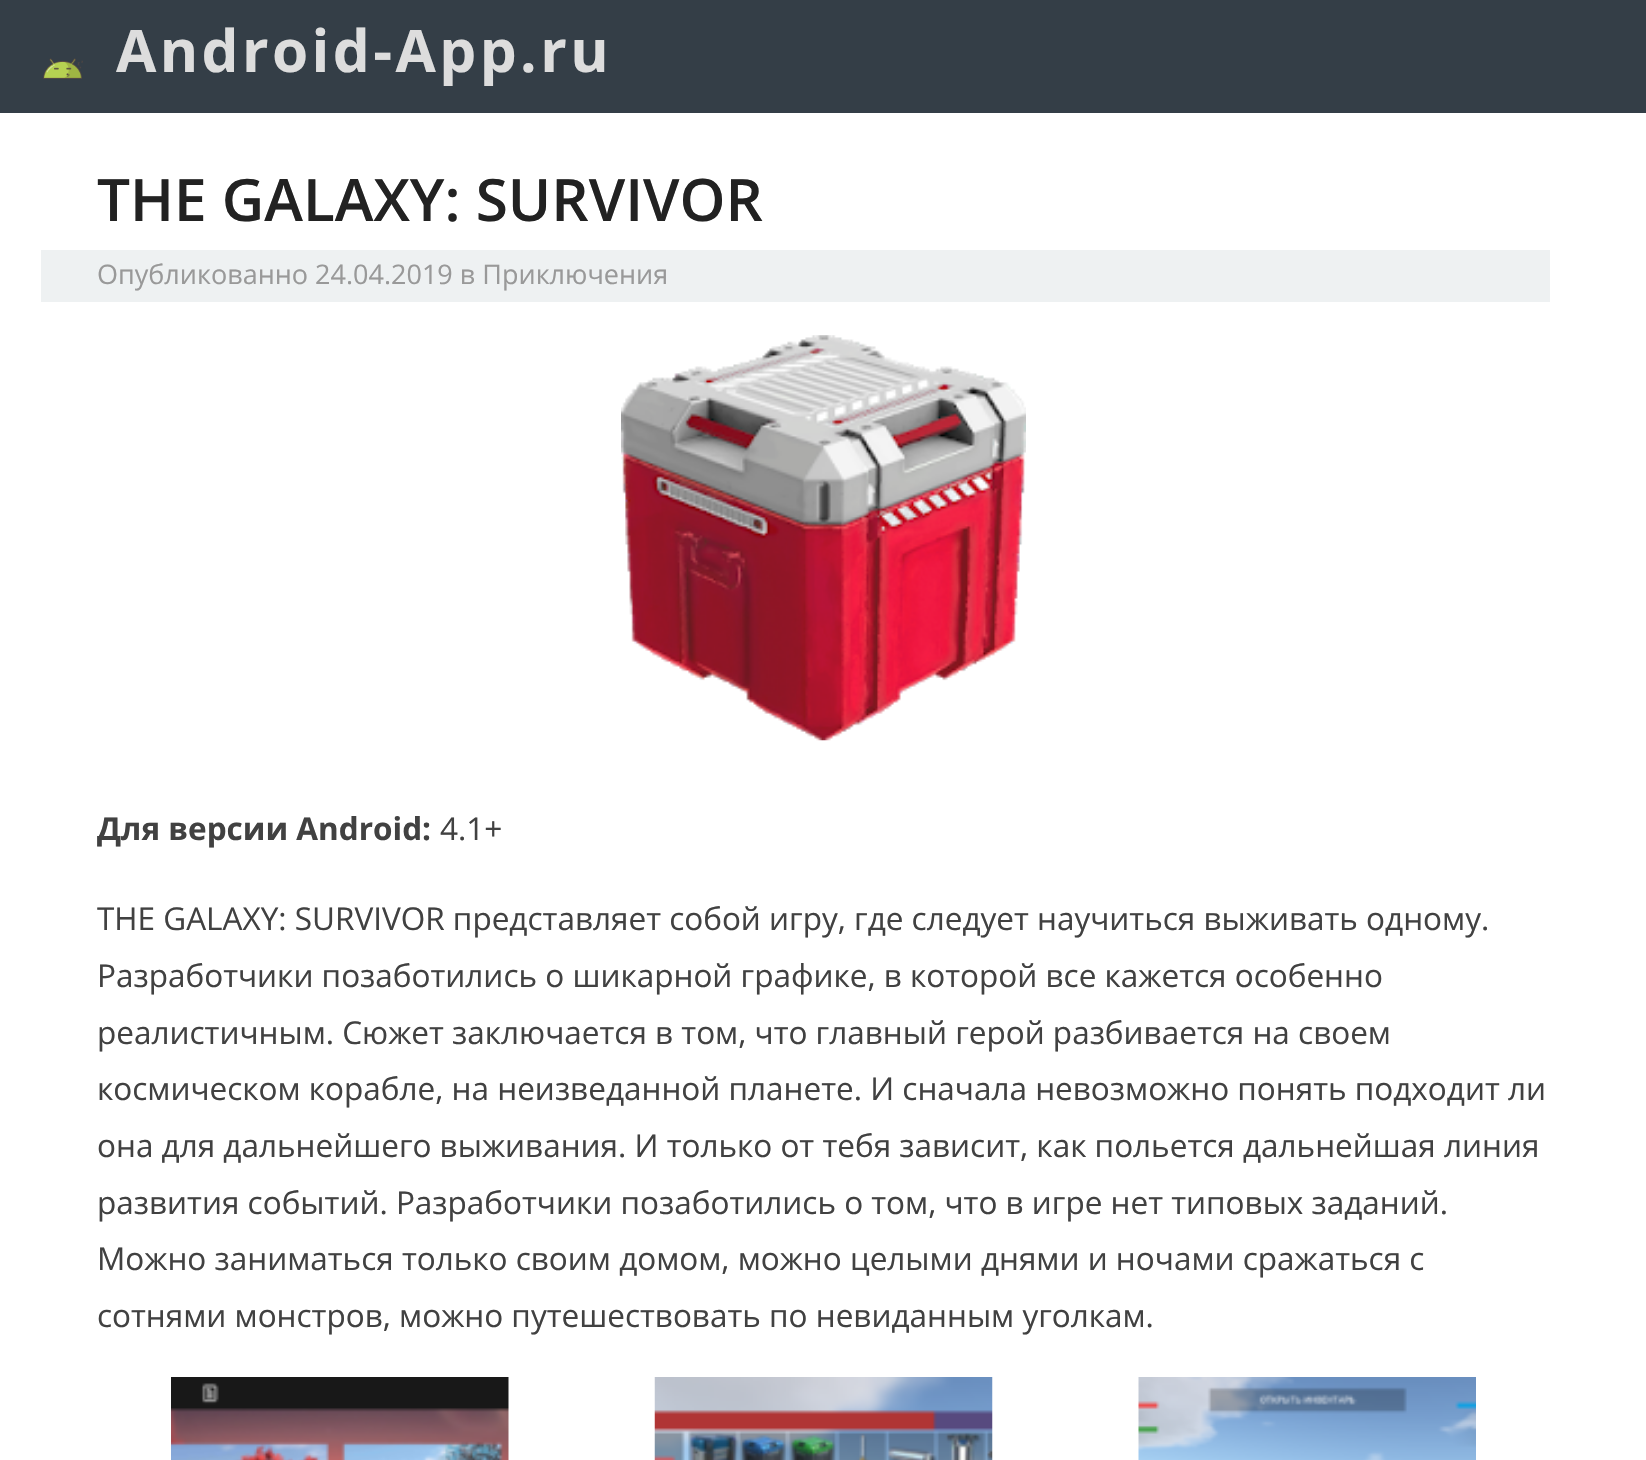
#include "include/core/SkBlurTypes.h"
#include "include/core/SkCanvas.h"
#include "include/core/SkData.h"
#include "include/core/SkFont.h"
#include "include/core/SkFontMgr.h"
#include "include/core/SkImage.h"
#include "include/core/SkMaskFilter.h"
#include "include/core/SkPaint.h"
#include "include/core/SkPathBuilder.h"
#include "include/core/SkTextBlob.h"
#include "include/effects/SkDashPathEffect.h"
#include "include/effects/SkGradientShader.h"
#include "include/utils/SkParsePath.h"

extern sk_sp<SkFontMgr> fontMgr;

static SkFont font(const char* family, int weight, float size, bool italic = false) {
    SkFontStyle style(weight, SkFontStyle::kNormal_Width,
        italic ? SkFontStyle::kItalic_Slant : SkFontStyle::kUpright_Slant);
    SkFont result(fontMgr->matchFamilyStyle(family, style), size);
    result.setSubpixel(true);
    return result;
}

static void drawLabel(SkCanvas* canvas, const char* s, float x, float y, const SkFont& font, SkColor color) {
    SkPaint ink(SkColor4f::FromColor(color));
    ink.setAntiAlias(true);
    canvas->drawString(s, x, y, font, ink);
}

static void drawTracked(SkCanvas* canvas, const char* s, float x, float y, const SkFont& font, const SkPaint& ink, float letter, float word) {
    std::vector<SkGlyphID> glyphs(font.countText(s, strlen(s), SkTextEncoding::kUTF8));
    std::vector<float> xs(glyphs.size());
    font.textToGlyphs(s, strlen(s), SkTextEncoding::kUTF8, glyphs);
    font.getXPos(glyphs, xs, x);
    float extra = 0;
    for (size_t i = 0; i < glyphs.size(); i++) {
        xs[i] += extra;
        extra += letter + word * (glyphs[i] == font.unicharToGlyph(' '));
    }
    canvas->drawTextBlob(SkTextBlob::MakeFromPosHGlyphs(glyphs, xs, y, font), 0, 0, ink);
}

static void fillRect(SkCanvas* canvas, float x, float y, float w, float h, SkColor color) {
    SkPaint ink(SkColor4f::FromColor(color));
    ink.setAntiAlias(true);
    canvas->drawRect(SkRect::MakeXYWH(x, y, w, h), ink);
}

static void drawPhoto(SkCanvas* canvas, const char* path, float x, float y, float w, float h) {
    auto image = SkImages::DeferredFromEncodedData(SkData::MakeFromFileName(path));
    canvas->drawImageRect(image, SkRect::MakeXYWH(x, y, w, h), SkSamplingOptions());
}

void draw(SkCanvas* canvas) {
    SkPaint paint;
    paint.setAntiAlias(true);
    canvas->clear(0xFFFFFFFF);
    fillRect(canvas, 0, 0, 1646, 113, 0xFF343E47);
    drawPhoto(canvas, "assets/img1.png", 43, 58, 40, 21);
    SkFont font1 = font("Open Sans", 700, 58.5f);
    paint.setColor(0xFFDDDDDD);
    drawTracked(canvas, "Android-App.ru", 116, 72, font1, paint, 3.4f, 0);
    SkFont font2 = font("Open Sans", 600, 58.5f);
    drawLabel(canvas, "THE GALAXY: SURVIVOR", 97, 221, font2, 0xFF222222);
    fillRect(canvas, 41, 250, 1509, 52, 0xFFEEF1F2);
    SkFont font3 = font("Open Sans", 400, 27);
    drawLabel(canvas, "Опубликованно 24.04.2019 в Приключения", 97, 284, font3, 0xFF999999);
    drawPhoto(canvas, "assets/img2.png", 621, 335, 405, 406);
    SkFont font4 = font("Open Sans", 700, 31.5f);
    drawLabel(canvas, "Для версии Android:", 97, 840, font4, 0xFF414141);
    SkFont font5 = font("Open Sans", 400, 31.5f);
    drawLabel(canvas, "4.1+", 440, 840, font5, 0xFF414141);
    drawLabel(canvas, "THE GALAXY: SURVIVOR представляет собой игру, где следует научиться выживать одному.", 97, 930, font5, 0xFF414141);
    drawLabel(canvas, "Разработчики позаботились о шикарной графике, в которой все кажется особенно", 97, 987, font5, 0xFF414141);
    drawLabel(canvas, "реалистичным. Сюжет заключается в том, что главный герой разбивается на своем", 97, 1044, font5, 0xFF414141);
    drawLabel(canvas, "космическом корабле, на неизведанной планете. И сначала невозможно понять подходит ли", 97, 1100, font5, 0xFF414141);
    drawLabel(canvas, "она для дальнейшего выживания. И только от тебя зависит, как польется дальнейшая линия", 97, 1157, font5, 0xFF414141);
    drawLabel(canvas, "развития событий. Разработчики позаботились о том, что в игре нет типовых заданий.", 97, 1214, font5, 0xFF414141);
    drawLabel(canvas, "Можно заниматься только своим домом, можно целыми днями и ночами сражаться с", 97, 1270, font5, 0xFF414141);
    drawLabel(canvas, "сотнями монстров, можно путешествовать по невиданным уголкам.", 97, 1327, font5, 0xFF414141);
    drawPhoto(canvas, "assets/img3.png", 171, 1377, 338, 83);
    drawPhoto(canvas, "assets/img4.png", 654, 1377, 339, 83);
    drawPhoto(canvas, "assets/img5.png", 1138, 1377, 338, 83);
}
